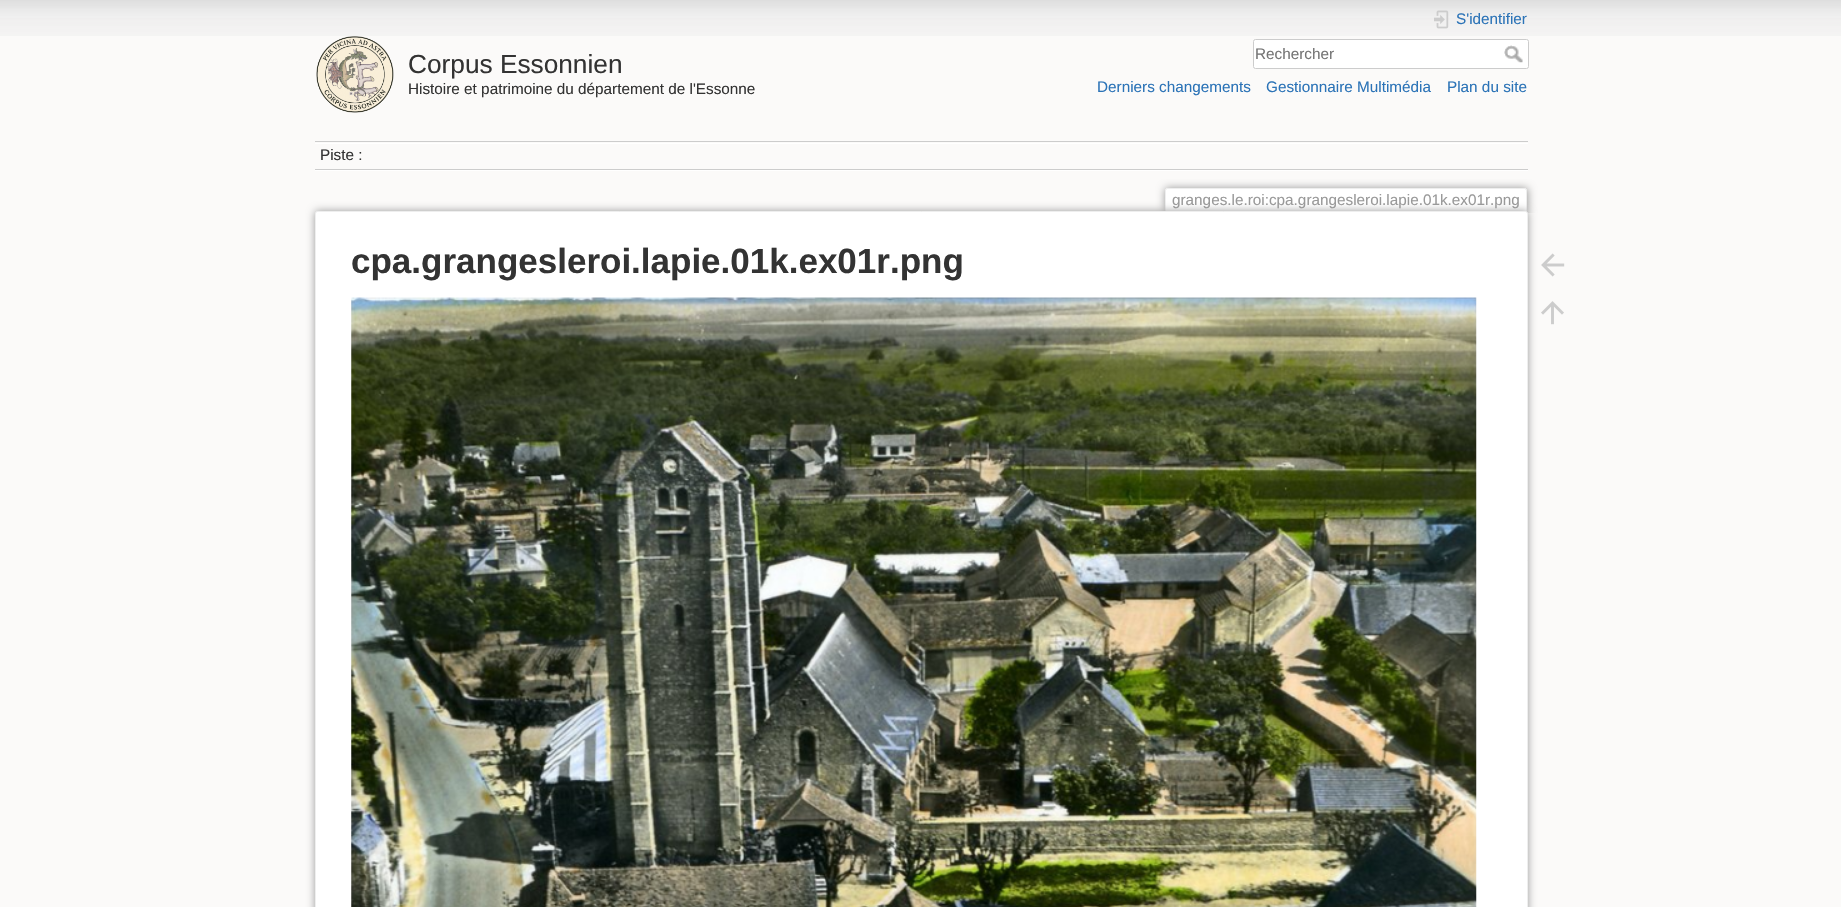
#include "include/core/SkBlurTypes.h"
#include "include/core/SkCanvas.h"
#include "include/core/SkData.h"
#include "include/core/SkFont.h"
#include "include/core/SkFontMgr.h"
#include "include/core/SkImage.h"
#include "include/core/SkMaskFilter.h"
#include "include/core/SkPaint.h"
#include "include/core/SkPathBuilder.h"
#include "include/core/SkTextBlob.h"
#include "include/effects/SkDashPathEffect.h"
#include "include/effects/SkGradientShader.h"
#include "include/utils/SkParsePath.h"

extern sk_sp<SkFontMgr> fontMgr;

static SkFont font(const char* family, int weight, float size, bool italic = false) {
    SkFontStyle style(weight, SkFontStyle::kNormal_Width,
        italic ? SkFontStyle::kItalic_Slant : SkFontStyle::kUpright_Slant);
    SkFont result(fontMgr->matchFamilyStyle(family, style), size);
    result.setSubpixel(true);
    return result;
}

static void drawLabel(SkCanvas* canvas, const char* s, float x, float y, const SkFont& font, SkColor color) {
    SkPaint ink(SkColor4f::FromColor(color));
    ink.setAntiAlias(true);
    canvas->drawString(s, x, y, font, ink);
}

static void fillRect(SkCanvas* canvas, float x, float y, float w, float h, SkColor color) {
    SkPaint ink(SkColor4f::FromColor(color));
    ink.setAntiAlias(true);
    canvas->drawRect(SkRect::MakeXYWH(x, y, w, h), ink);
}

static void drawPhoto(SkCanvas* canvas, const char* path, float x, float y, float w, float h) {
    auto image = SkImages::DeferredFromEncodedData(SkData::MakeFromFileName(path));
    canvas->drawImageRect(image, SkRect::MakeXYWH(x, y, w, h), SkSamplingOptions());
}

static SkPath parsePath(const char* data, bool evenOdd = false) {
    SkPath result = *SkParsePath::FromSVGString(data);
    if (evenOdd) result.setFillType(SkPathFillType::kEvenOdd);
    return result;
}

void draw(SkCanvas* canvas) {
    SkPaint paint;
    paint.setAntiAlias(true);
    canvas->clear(0xFFFBFAF9);
    drawPhoto(canvas, "assets/img1.png", 0, 0, 1841, 36);
    drawPhoto(canvas, "assets/img2.png", 316, 36, 78, 77);
    SkFont font1 = font("Liberation Sans", 400, 26.25f);
    drawLabel(canvas, "Corpus Essonnien", 408, 73, font1, 0xFF333333);
    SkFont font2 = font("Liberation Sans", 400, 15.3f);
    drawLabel(canvas, "Histoire et patrimoine du département de l'Essonne", 408, 94, font2, 0xFF333333);
    drawPhoto(canvas, "assets/img3.png", 1434, 10, 15, 19);
    drawLabel(canvas, "S'identifier", 1456, 24, font2, 0xFF2B73B7);
    paint.setColor(0xFFFFFFFF);
    canvas->drawRoundRect(SkRect::MakeXYWH(1253.5f, 39.5f, 275, 29), 2, 2, paint);
    paint.setStroke(true);
    paint.setStrokeWidth(1);
    paint.setColor(0xFFCCCCCC);
    canvas->drawRoundRect(SkRect::MakeXYWH(1253.5f, 39.5f, 275, 29), 2, 2, paint);
    drawLabel(canvas, "Rechercher", 1255, 59, font2, 0xFF757575);
    drawPhoto(canvas, "assets/img4.png", 1504, 45, 19, 18);
    drawLabel(canvas, "Derniers changements", 1097, 92, font2, 0xFF2B73B7);
    drawLabel(canvas, "Gestionnaire Multimédia", 1266, 92, font2, 0xFF2B73B7);
    drawLabel(canvas, "Plan du site", 1447, 92, font2, 0xFF2B73B7);
    fillRect(canvas, 315, 141, 1213, 1, 0xFFCCCCCC);
    fillRect(canvas, 315, 170, 1213, 1, 0xFFFFFFFF);
    fillRect(canvas, 315, 143, 1213, 1, 0xFFFFFFFF);
    fillRect(canvas, 315, 169, 1213, 1, 0xFFCCCCCC);
    drawLabel(canvas, "Piste :", 320, 160, font2, 0xFF333333);
    canvas->save();
    canvas->clipRect(SkRect::MakeXYWH(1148, 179, 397, 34));
    paint.setStroke(false);
    paint.setColor(0xFF999999);
    paint.setMaskFilter(SkMaskFilter::MakeBlur(kNormal_SkBlurStyle, 4));
    canvas->drawRoundRect(SkRect::MakeXYWH(1165, 188, 363, 25), 2.5f, 2.5f, paint);
    paint.setMaskFilter(nullptr);
    canvas->restore();
    paint.setColor(0xFFFFFFFF);
    canvas->drawPath(parsePath("M1167 189H1525C1525.5 189 1526 189.5 1526 190V213H1166V190C1166 189.5 1166.5 189 1167 189Z"), paint);
    fillRect(canvas, 1166, 188, 360, 1, 0xFFEEEEEE);
    fillRect(canvas, 1526, 189, 1, 24, 0xFFEEEEEE);
    fillRect(canvas, 1165, 189, 1, 24, 0xFFEEEEEE);
    drawLabel(canvas, "granges.le.roi:cpa.grangesleroi.lapie.01k.ex01r.png", 1172, 205, font2, 0xFF999999);
    paint.setColor(0xFF999999);
    paint.setMaskFilter(SkMaskFilter::MakeBlur(kNormal_SkBlurStyle, 4.5f));
    canvas->drawRoundRect(SkRect::MakeXYWH(315, 211, 1213, 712), 2.5f, 2.5f, paint);
    paint.setMaskFilter(nullptr);
    paint.setColor(0xFFFFFFFF);
    canvas->drawRoundRect(SkRect::MakeXYWH(315.5f, 211.5f, 1212, 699), 2, 2, paint);
    paint.setStroke(true);
    paint.setColor(0xFFEEEEEE);
    canvas->drawRoundRect(SkRect::MakeXYWH(315.5f, 211.5f, 1212, 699), 2, 2, paint);
    SkFont font3 = font("Liberation Sans", 700, 35);
    drawLabel(canvas, "cpa.grangesleroi.lapie.01k.ex01r.png", 351, 273, font3, 0xFF333333);
    drawPhoto(canvas, "assets/img5.png", 351, 297, 1126, 610);
    drawPhoto(canvas, "assets/img6.png", 1541, 253, 24, 24);
    drawPhoto(canvas, "assets/img7.png", 1541, 301, 23, 24);
}
